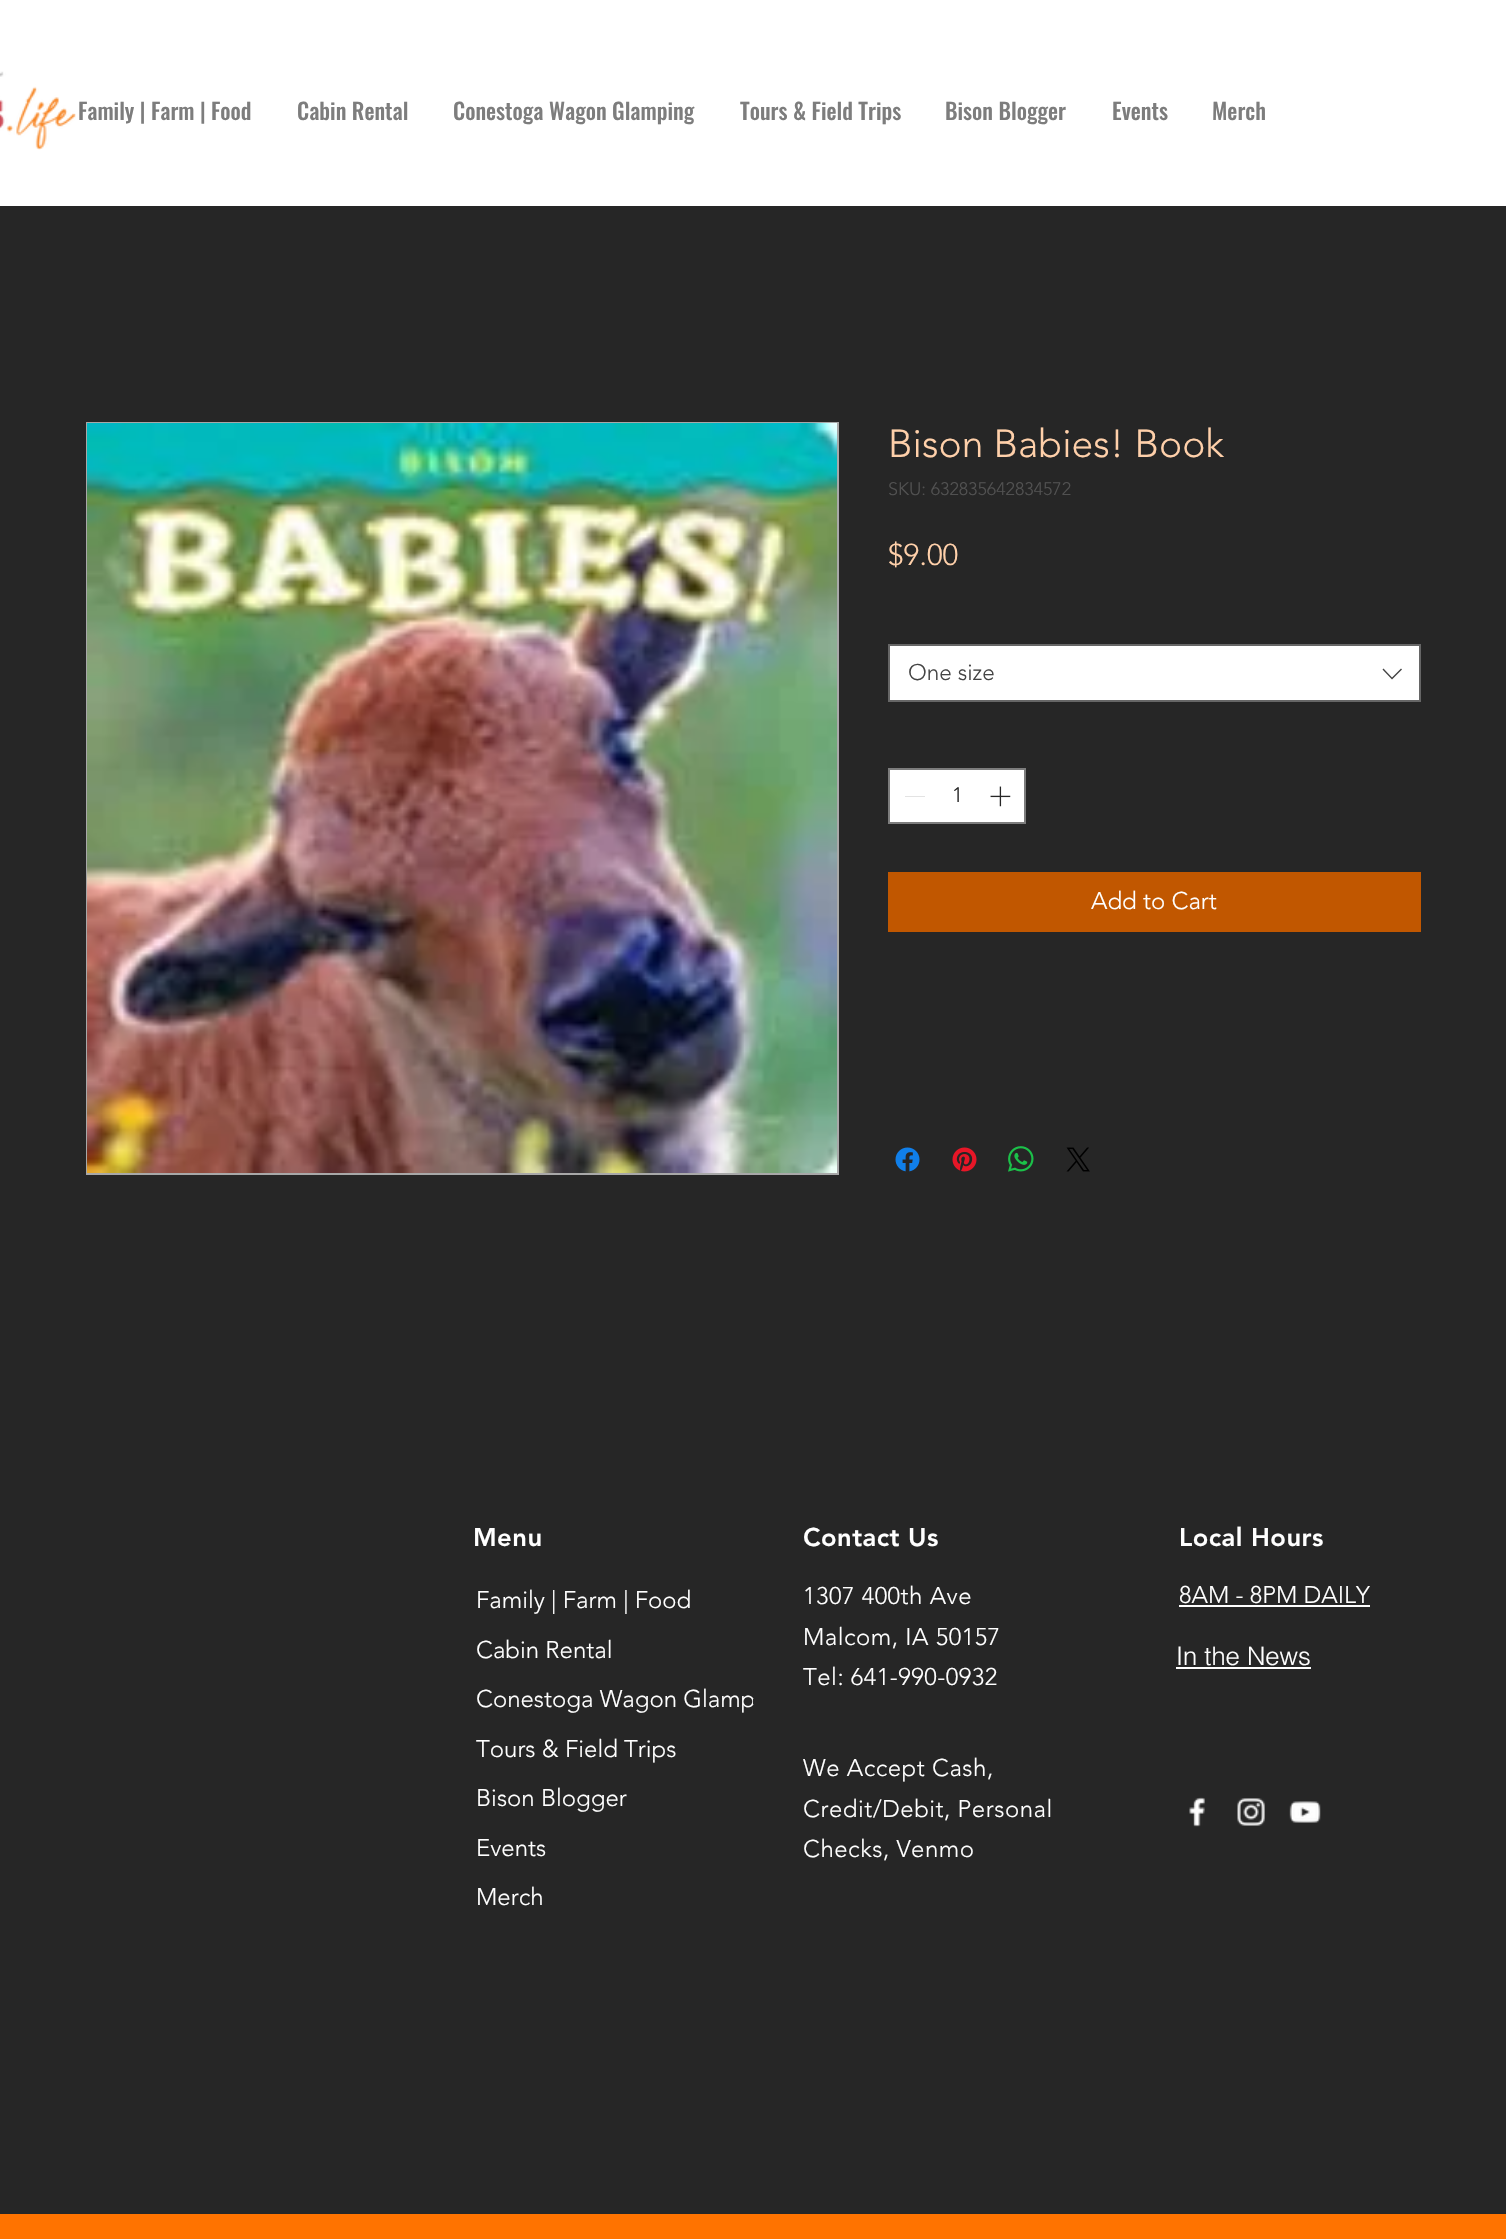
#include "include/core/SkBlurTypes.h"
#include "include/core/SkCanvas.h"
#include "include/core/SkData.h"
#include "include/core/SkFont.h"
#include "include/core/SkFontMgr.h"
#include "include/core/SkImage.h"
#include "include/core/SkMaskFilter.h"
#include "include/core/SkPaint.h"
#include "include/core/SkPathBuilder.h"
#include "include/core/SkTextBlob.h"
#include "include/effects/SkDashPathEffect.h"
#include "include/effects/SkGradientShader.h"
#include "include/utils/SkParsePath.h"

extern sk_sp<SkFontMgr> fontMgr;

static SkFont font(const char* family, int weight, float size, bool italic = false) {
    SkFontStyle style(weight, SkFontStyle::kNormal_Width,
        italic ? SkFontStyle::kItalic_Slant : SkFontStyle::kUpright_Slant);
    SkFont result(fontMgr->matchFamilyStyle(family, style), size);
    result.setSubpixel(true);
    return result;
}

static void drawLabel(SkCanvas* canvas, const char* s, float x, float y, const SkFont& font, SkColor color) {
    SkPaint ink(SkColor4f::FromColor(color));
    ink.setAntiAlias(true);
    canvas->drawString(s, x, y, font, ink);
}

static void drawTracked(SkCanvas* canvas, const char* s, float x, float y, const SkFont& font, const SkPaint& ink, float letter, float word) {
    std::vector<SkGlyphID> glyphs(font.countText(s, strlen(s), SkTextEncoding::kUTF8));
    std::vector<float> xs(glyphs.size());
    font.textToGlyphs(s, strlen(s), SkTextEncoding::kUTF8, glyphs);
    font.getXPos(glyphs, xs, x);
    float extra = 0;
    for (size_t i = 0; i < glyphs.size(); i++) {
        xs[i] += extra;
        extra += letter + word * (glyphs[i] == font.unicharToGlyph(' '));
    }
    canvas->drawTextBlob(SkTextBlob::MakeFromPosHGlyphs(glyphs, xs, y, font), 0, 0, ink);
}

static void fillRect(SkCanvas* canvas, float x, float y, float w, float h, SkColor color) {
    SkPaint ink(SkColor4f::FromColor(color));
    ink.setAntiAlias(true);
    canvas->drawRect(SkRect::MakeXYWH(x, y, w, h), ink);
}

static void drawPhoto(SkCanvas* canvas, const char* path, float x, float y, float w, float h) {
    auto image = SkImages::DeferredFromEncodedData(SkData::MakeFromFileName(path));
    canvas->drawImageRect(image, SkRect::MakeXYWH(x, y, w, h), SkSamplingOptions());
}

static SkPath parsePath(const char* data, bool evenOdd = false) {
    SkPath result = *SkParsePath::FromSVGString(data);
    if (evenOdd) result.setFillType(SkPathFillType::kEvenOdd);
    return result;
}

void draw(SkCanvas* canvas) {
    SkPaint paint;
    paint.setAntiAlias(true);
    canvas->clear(0xFF262626);
    fillRect(canvas, 0, 0, 1506, 206, 0xFFFFFFFF);
    drawPhoto(canvas, "assets/img1.png", 0, 71, 76, 79);
    SkFont font1 = font("Oswald", 500, 22.5f);
    drawLabel(canvas, "Family | Farm | Food", 78, 120, font1, 0xFF7D7D7D);
    drawLabel(canvas, "Cabin Rental", 297, 120, font1, 0xFF7D7D7D);
    drawLabel(canvas, "Conestoga Wagon Glamping", 453, 120, font1, 0xFF7D7D7D);
    drawLabel(canvas, "Tours & Field Trips", 740, 120, font1, 0xFF7D7D7D);
    drawLabel(canvas, "Bison Blogger", 945, 120, font1, 0xFF7D7D7D);
    drawLabel(canvas, "Events", 1112, 120, font1, 0xFF7D7D7D);
    drawLabel(canvas, "Merch", 1212, 120, font1, 0xFF7D7D7D);
    paint.setStroke(true);
    paint.setStrokeWidth(2);
    paint.setColor(0xFFA8A8A8);
    canvas->drawRect(SkRect::MakeXYWH(87, 423, 751, 751), paint);
    drawPhoto(canvas, "assets/img2.png", 87, 423, 750, 750);
    SkFont font2 = font("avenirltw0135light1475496", 300, 39);
    drawLabel(canvas, "Bison Babies! Book", 888, 457, font2, 0xFFFFD0AA);
    SkFont font3 = font("avenirltw0135light1475496", 300, 18);
    drawLabel(canvas, "SKU: 632835642834572", 888, 495, font3, 0xFF515151);
    SkFont font4 = font("avenirltw0135light1475496", 300, 30);
    drawLabel(canvas, "$9.00", 888, 565, font4, 0xFFFFD0AA);
    paint.setStroke(false);
    paint.setColor(0xFFFFFFFF);
    canvas->drawRect(SkRect::MakeXYWH(889, 645, 531, 56), paint);
    paint.setStroke(true);
    paint.setColor(0xFF666666);
    canvas->drawRect(SkRect::MakeXYWH(889, 645, 531, 56), paint);
    SkFont font5 = font("avenirltw0135light1475496", 300, 22.5f);
    drawLabel(canvas, "One size", 908, 680, font5, 0xFF444444);
    paint.setStroke(false);
    paint.setColor(0xFF444444);
    canvas->drawPath(parsePath("M1401 668.5L1402 669.5L1392 679.5L1382.5 669.5L1383.5 668.5L1392 677.5Z", true), paint);
    paint.setColor(0xFFFFFFFF);
    canvas->drawRect(SkRect::MakeXYWH(889, 769, 136, 54), paint);
    paint.setStroke(true);
    paint.setColor(0xFF7D7D7D);
    canvas->drawRect(SkRect::MakeXYWH(889, 769, 136, 54), paint);
    fillRect(canvas, 905, 796, 20, 1, 0xFFE3E3E3);
    SkFont font6 = font("avenirltw0135light1475496", 300, 21);
    drawLabel(canvas, "1", 952, 802, font6, 0xFF262626);
    drawPhoto(canvas, "assets/img3.png", 990, 786, 21, 21);
    fillRect(canvas, 888, 872, 533, 60, 0xFFC15700);
    SkFont font7 = font("avenirltw0135light1475496", 300, 24);
    drawLabel(canvas, "Add to Cart", 1091, 909, font7, 0xFFFFFFFF);
    drawPhoto(canvas, "assets/img4.png", 895, 1147, 25, 25);
    drawPhoto(canvas, "assets/img5.png", 952, 1147, 25, 25);
    drawPhoto(canvas, "assets/img6.png", 1008, 1146, 26, 26);
    drawPhoto(canvas, "assets/img7.png", 1066, 1147, 24, 25);
    SkFont font8 = font("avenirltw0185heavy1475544", 900, 25.5f);
    paint.setStroke(false);
    paint.setColor(0xFFFFFFFF);
    drawTracked(canvas, "Menu", 473, 1546, font8, paint, 0.5f, 0);
    drawLabel(canvas, "Family | Farm | Food", 476, 1608, font7, 0xFFFFFFFF);
    drawLabel(canvas, "Cabin Rental", 476, 1658, font7, 0xFFFFFFFF);
    drawLabel(canvas, "Conestoga Wagon Glamp", 476, 1707, font7, 0xFFFFFFFF);
    drawLabel(canvas, "Tours & Field Trips", 476, 1757, font7, 0xFFFFFFFF);
    drawLabel(canvas, "Bison Blogger", 476, 1806, font7, 0xFFFFFFFF);
    drawLabel(canvas, "Events", 476, 1856, font7, 0xFFFFFFFF);
    drawLabel(canvas, "Merch", 476, 1905, font7, 0xFFFFFFFF);
    fillRect(canvas, 753, 1699, 1, 5, 0xFF262626);
    drawTracked(canvas, "Contact Us", 803, 1546, font8, paint, 0.5f, 0);
    drawTracked(canvas, "1307 400th Ave", 803, 1604, font7, paint, 0.5f, 0);
    drawTracked(canvas, "Malcom, IA 50157", 803, 1645, font7, paint, 0.5f, 0);
    drawTracked(canvas, "Tel: 641-990-0932", 803, 1685, font7, paint, 0.5f, 0);
    drawTracked(canvas, "We Accept Cash,", 803, 1776, font7, paint, 0.5f, 0);
    drawTracked(canvas, "Credit/Debit, Personal", 803, 1817, font7, paint, 0.5f, 0);
    drawTracked(canvas, "Checks, Venmo", 803, 1857, font7, paint, 0.5f, 0);
    drawTracked(canvas, "Local Hours", 1179, 1546, font8, paint, 0.5f, 0);
    drawLabel(canvas, "8AM - 8PM DAILY", 1179, 1603, font7, 0xFFFFFFFF);
    fillRect(canvas, 1179, 1605, 191, 2, 0xFFFFFFFF);
    SkFont font9 = font("helvetica", 300, 25.5f);
    drawLabel(canvas, "In the News", 1176, 1665, font9, 0xFFFFFFFF);
    fillRect(canvas, 1176, 1667, 135, 2, 0xFFFFFFFF);
    drawPhoto(canvas, "assets/img8.png", 1189, 1797, 16, 30);
    drawPhoto(canvas, "assets/img9.png", 1237, 1798, 28, 28);
    drawPhoto(canvas, "assets/img10.png", 1289, 1801, 32, 22);
    fillRect(canvas, 0, 2214, 1506, 25, 0xFFFF7300);
}
